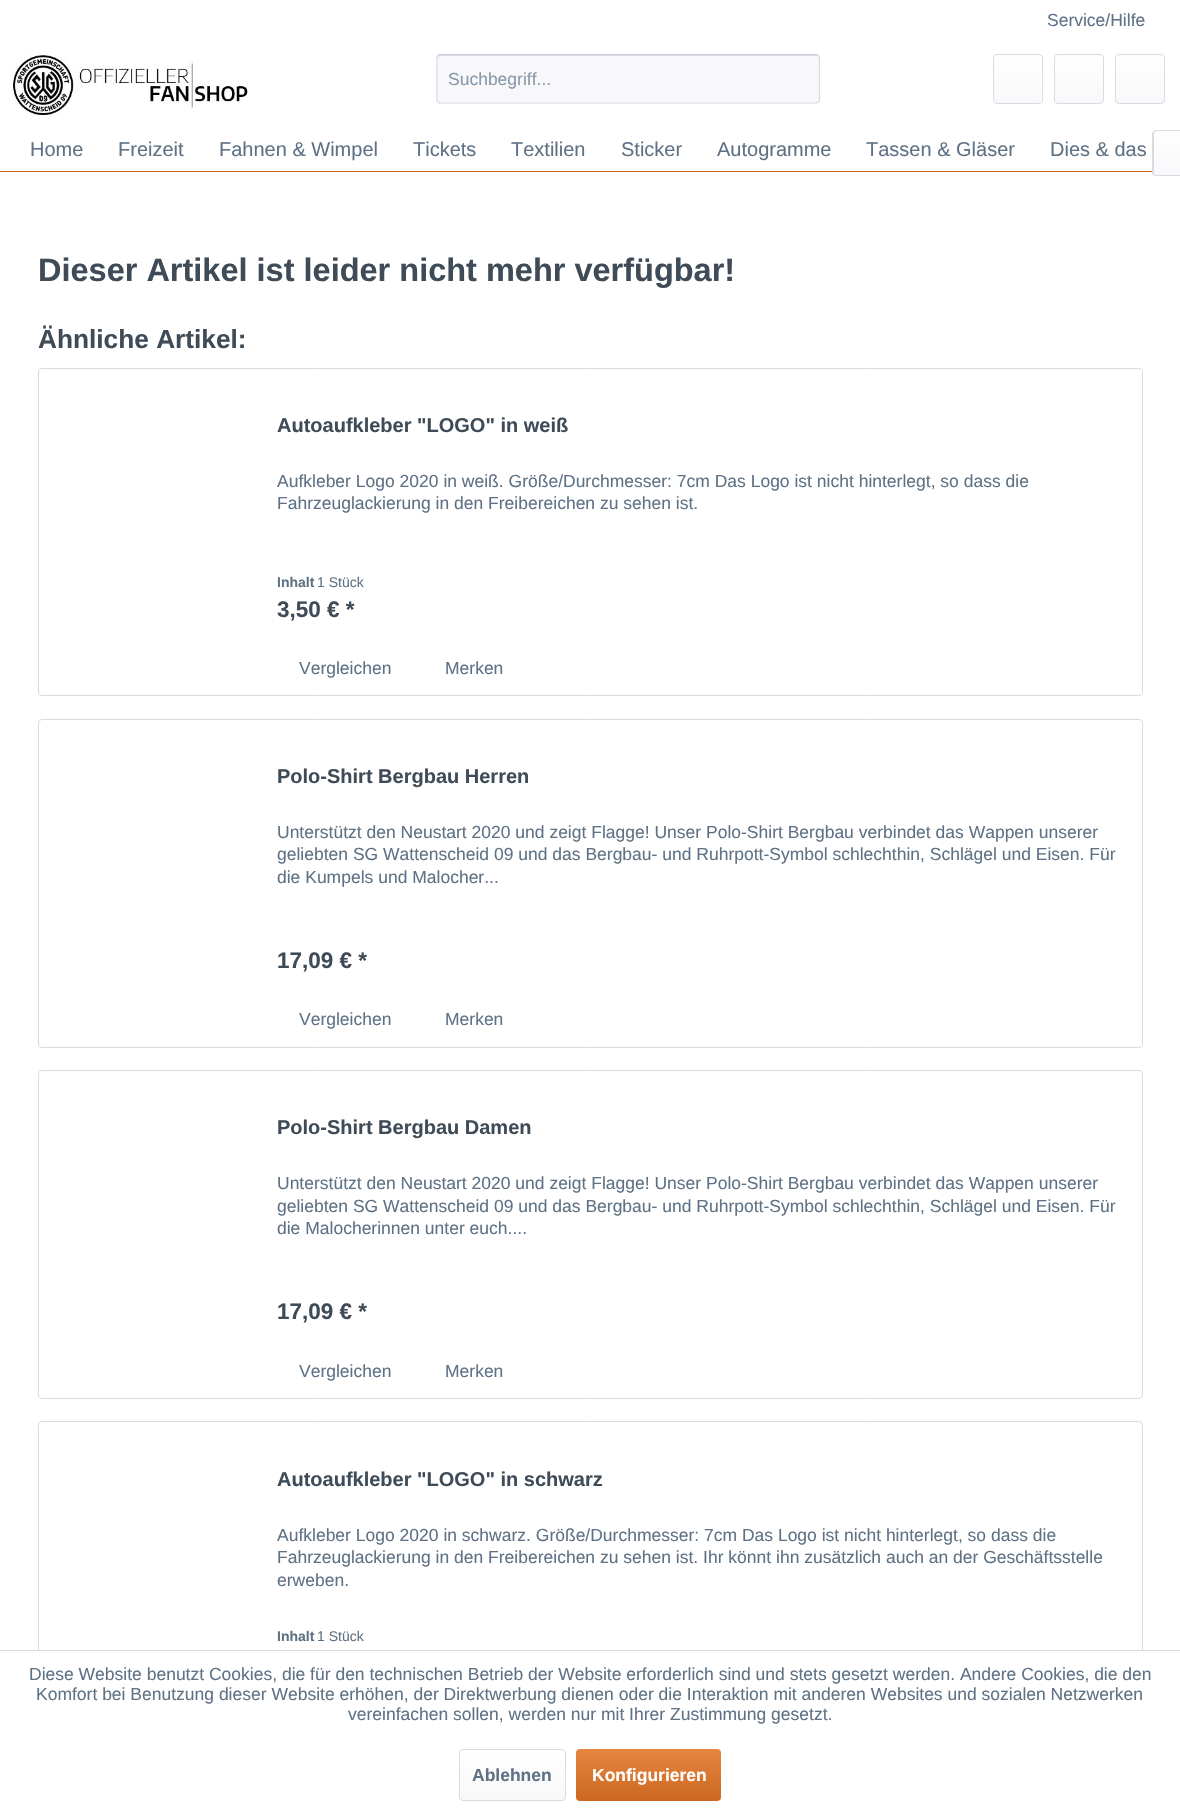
#include "include/core/SkBlurTypes.h"
#include "include/core/SkCanvas.h"
#include "include/core/SkData.h"
#include "include/core/SkFont.h"
#include "include/core/SkFontMgr.h"
#include "include/core/SkImage.h"
#include "include/core/SkMaskFilter.h"
#include "include/core/SkPaint.h"
#include "include/core/SkPathBuilder.h"
#include "include/core/SkTextBlob.h"
#include "include/effects/SkDashPathEffect.h"
#include "include/effects/SkGradientShader.h"
#include "include/utils/SkParsePath.h"

extern sk_sp<SkFontMgr> fontMgr;

static SkFont font(const char* family, int weight, float size, bool italic = false) {
    SkFontStyle style(weight, SkFontStyle::kNormal_Width,
        italic ? SkFontStyle::kItalic_Slant : SkFontStyle::kUpright_Slant);
    SkFont result(fontMgr->matchFamilyStyle(family, style), size);
    result.setSubpixel(true);
    return result;
}

static void drawLabel(SkCanvas* canvas, const char* s, float x, float y, const SkFont& font, SkColor color) {
    SkPaint ink(SkColor4f::FromColor(color));
    ink.setAntiAlias(true);
    canvas->drawString(s, x, y, font, ink);
}

static void fillRect(SkCanvas* canvas, float x, float y, float w, float h, SkColor color) {
    SkPaint ink(SkColor4f::FromColor(color));
    ink.setAntiAlias(true);
    canvas->drawRect(SkRect::MakeXYWH(x, y, w, h), ink);
}

static void fillRRect(SkCanvas* canvas, float x, float y, float w, float h, float radius, SkColor color) {
    SkPaint ink(SkColor4f::FromColor(color));
    ink.setAntiAlias(true);
    canvas->drawRoundRect(SkRect::MakeXYWH(x, y, w, h), radius, radius, ink);
}

static void drawPhoto(SkCanvas* canvas, const char* path, float x, float y, float w, float h) {
    auto image = SkImages::DeferredFromEncodedData(SkData::MakeFromFileName(path));
    canvas->drawImageRect(image, SkRect::MakeXYWH(x, y, w, h), SkSamplingOptions());
}

static SkPath parsePath(const char* data, bool evenOdd = false) {
    SkPath result = *SkParsePath::FromSVGString(data);
    if (evenOdd) result.setFillType(SkPathFillType::kEvenOdd);
    return result;
}

void draw(SkCanvas* canvas) {
    SkPaint paint;
    paint.setAntiAlias(true);
    canvas->clear(0xFFFFFFFF);
    SkFont font1 = font("Liberation Sans", 400, 17.5f);
    drawLabel(canvas, "Service/Hilfe", 1047, 26, font1, 0xFF5F7285);
    drawPhoto(canvas, "assets/img1.png", 13, 54, 235, 61);
    fillRRect(canvas, 436, 54, 384, 50, 4, 0xFFF8F8FA);
    paint.setColor(0xFFDADAE5);
    canvas->drawPath(parsePath("M440 56H816C818 56 819 57 819 59V58C819 56 818 55 816 55H440C439 55 438 56 438 58V59C438 57 439 56 440 56Z"), paint);
    paint.setStroke(true);
    paint.setStrokeWidth(1.2f);
    paint.setColor(0xFFCBCBDB);
    canvas->drawPath(parsePath("M438 55.5L440 54.5H816L818.5 55.5"), paint);
    paint.setColor(0xFFDADAE5);
    canvas->drawPath(parsePath("M818.5 55.5L819.5 57.5V100L818.5 102L816 103H440L438 102L437 100V57.5L438 55.5"), paint);
    drawLabel(canvas, "Suchbegriff...", 448, 85, font1, 0xFF8798A9);
    paint.setStroke(false);
    {
        const SkColor colors[] = {0xFFFFFFFF, 0xFFF8F8FA};
        const float stops[] = {0, 1};
        const SkPoint ends[] = {{1018, 55}, {1018, 103}};
        paint.setShader(SkGradientShader::MakeLinear(ends, colors, stops, 2, SkTileMode::kClamp));
        paint.setAlpha(255);
    }
    canvas->drawRoundRect(SkRect::MakeXYWH(994, 55, 47, 48), 2.5f, 2.5f, paint);
    paint.setStroke(true);
    paint.setStrokeWidth(1);
    paint.setShader(nullptr);
    paint.setColor(0xFFDADAE5);
    canvas->drawRoundRect(SkRect::MakeXYWH(993.5f, 54.5f, 49, 49), 3.5f, 3.5f, paint);
    paint.setStroke(false);
    {
        const SkColor colors[] = {0xFFFFFFFF, 0xFFF8F8FA};
        const float stops[] = {0, 1};
        const SkPoint ends[] = {{1079, 55}, {1079, 103}};
        paint.setShader(SkGradientShader::MakeLinear(ends, colors, stops, 2, SkTileMode::kClamp));
        paint.setAlpha(255);
    }
    canvas->drawRoundRect(SkRect::MakeXYWH(1055, 55, 48, 48), 2.5f, 2.5f, paint);
    paint.setStroke(true);
    paint.setShader(nullptr);
    paint.setColor(0xFFDADAE5);
    canvas->drawRoundRect(SkRect::MakeXYWH(1054.5f, 54.5f, 49, 49), 3.5f, 3.5f, paint);
    paint.setStroke(false);
    {
        const SkColor colors[] = {0xFFFFFFFF, 0xFFF8F8FA};
        const float stops[] = {0, 1};
        const SkPoint ends[] = {{1140, 55}, {1140, 103}};
        paint.setShader(SkGradientShader::MakeLinear(ends, colors, stops, 2, SkTileMode::kClamp));
        paint.setAlpha(255);
    }
    canvas->drawRoundRect(SkRect::MakeXYWH(1116, 55, 48, 48), 2.5f, 2.5f, paint);
    paint.setStroke(true);
    paint.setShader(nullptr);
    paint.setColor(0xFFDADAE5);
    canvas->drawRoundRect(SkRect::MakeXYWH(1115.5f, 54.5f, 49, 49), 3.5f, 3.5f, paint);
    fillRect(canvas, 0, 171, 1152, 1, 0xFFCB6720);
    SkFont font2 = font("Liberation Sans", 400, 20);
    drawLabel(canvas, "Home", 30, 156, font2, 0xFF5F7285);
    drawLabel(canvas, "Freizeit", 118, 156, font2, 0xFF5F7285);
    drawLabel(canvas, "Fahnen & Wimpel", 219, 156, font2, 0xFF5F7285);
    drawLabel(canvas, "Tickets", 413, 156, font2, 0xFF5F7285);
    drawLabel(canvas, "Textilien", 511, 156, font2, 0xFF5F7285);
    drawLabel(canvas, "Sticker", 621, 156, font2, 0xFF5F7285);
    drawLabel(canvas, "Autogramme", 717, 156, font2, 0xFF5F7285);
    drawLabel(canvas, "Tassen & Gläser", 866, 156, font2, 0xFF5F7285);
    drawLabel(canvas, "Dies & das", 1050, 156, font2, 0xFF5F7285);
    paint.setStroke(false);
    {
        const SkColor colors[] = {0xFFFFFFFF, 0xFFF8F8FA};
        const float stops[] = {0, 1};
        const SkPoint ends[] = {{1167, 131}, {1167, 175}};
        paint.setShader(SkGradientShader::MakeLinear(ends, colors, stops, 2, SkTileMode::kClamp));
        paint.setAlpha(255);
    }
    canvas->drawPath(parsePath("M1156.5 131H1180V175H1156.5C1155 175 1154 174 1154 172.5V133.5C1154 132 1155 131 1156.5 131Z"), paint);
    paint.setShader(nullptr);
    paint.setColor(0xFFDADAE5);
    canvas->drawPath(parsePath("M1156 130H1180V176H1156C1154 176 1152 175 1152 172V134C1152 132 1154 130 1156 130ZM1156 131H1180V175H1156C1155 175 1154 174 1154 172V134C1154 132 1155 131 1156 131Z", true), paint);
    SkFont font3 = font("Liberation Sans", 700, 32.5f);
    drawLabel(canvas, "Dieser Artikel ist leider nicht mehr verfügbar!", 38, 281, font3, 0xFF3F4C58);
    SkFont font4 = font("Liberation Sans", 700, 26.25f);
    drawLabel(canvas, "Ähnliche Artikel:", 38, 348, font4, 0xFF3F4C58);
    paint.setStroke(true);
    canvas->drawRoundRect(SkRect::MakeXYWH(38.5f, 368.5f, 1104, 327), 3.5f, 3.5f, paint);
    SkFont font5 = font("Liberation Sans", 700, 20);
    drawLabel(canvas, "Autoaufkleber \"LOGO\" in weiß", 277, 432, font5, 0xFF3F4C58);
    drawLabel(canvas, "Aufkleber Logo 2020 in weiß. Größe/Durchmesser: 7cm Das Logo ist nicht hinterlegt, so dass die", 277, 487, font1, 0xFF5F7285);
    drawLabel(canvas, "Fahrzeuglackierung in den Freibereichen zu sehen ist.", 277, 509, font1, 0xFF5F7285);
    SkFont font6 = font("Liberation Sans", 700, 14);
    drawLabel(canvas, "Inhalt", 277, 587, font6, 0xFF5F7285);
    SkFont font7 = font("Liberation Sans", 400, 14);
    drawLabel(canvas, "1 Stück", 317, 587, font7, 0xFF5F7285);
    SkFont font8 = font("Liberation Sans", 700, 22.5f);
    drawLabel(canvas, "3,50 € *", 277, 617, font8, 0xFF3F4C58);
    drawLabel(canvas, "Vergleichen", 299, 674, font1, 0xFF5F7285);
    drawLabel(canvas, "Merken", 445, 674, font1, 0xFF5F7285);
    canvas->drawRoundRect(SkRect::MakeXYWH(38.5f, 719.5f, 1104, 328), 3.5f, 3.5f, paint);
    drawLabel(canvas, "Polo-Shirt Bergbau Herren", 277, 783, font5, 0xFF3F4C58);
    drawLabel(canvas, "Unterstützt den Neustart 2020 und zeigt Flagge! Unser Polo-Shirt Bergbau verbindet das Wappen unserer", 277, 838, font1, 0xFF5F7285);
    drawLabel(canvas, "geliebten SG Wattenscheid 09 und das Bergbau- und Ruhrpott-Symbol schlechthin, Schlägel und Eisen. Für", 277, 860, font1, 0xFF5F7285);
    drawLabel(canvas, "die Kumpels und Malocher...", 277, 883, font1, 0xFF5F7285);
    drawLabel(canvas, "17,09 € *", 277, 968, font8, 0xFF3F4C58);
    drawLabel(canvas, "Vergleichen", 299, 1025, font1, 0xFF5F7285);
    drawLabel(canvas, "Merken", 445, 1025, font1, 0xFF5F7285);
    canvas->drawRoundRect(SkRect::MakeXYWH(38.5f, 1070.5f, 1104, 328), 3.5f, 3.5f, paint);
    drawLabel(canvas, "Polo-Shirt Bergbau Damen", 277, 1134, font5, 0xFF3F4C58);
    drawLabel(canvas, "Unterstützt den Neustart 2020 und zeigt Flagge! Unser Polo-Shirt Bergbau verbindet das Wappen unserer", 277, 1189, font1, 0xFF5F7285);
    drawLabel(canvas, "geliebten SG Wattenscheid 09 und das Bergbau- und Ruhrpott-Symbol schlechthin, Schlägel und Eisen. Für", 277, 1212, font1, 0xFF5F7285);
    drawLabel(canvas, "die Malocherinnen unter euch....", 277, 1234, font1, 0xFF5F7285);
    drawLabel(canvas, "17,09 € *", 277, 1319, font8, 0xFF3F4C58);
    drawLabel(canvas, "Vergleichen", 299, 1377, font1, 0xFF5F7285);
    drawLabel(canvas, "Merken", 445, 1377, font1, 0xFF5F7285);
    canvas->drawRoundRect(SkRect::MakeXYWH(38.5f, 1421.5f, 1104, 328), 3.5f, 3.5f, paint);
    drawLabel(canvas, "Autoaufkleber \"LOGO\" in schwarz", 277, 1486, font5, 0xFF3F4C58);
    drawLabel(canvas, "Aufkleber Logo 2020 in schwarz. Größe/Durchmesser: 7cm Das Logo ist nicht hinterlegt, so dass die", 277, 1541, font1, 0xFF5F7285);
    drawLabel(canvas, "Fahrzeuglackierung in den Freibereichen zu sehen ist. Ihr könnt ihn zusätzlich auch an der Geschäftsstelle", 277, 1563, font1, 0xFF5F7285);
    drawLabel(canvas, "erweben.", 277, 1586, font1, 0xFF5F7285);
    drawLabel(canvas, "Inhalt", 277, 1641, font6, 0xFF5F7285);
    drawLabel(canvas, "1 Stück", 317, 1641, font7, 0xFF5F7285);
    fillRect(canvas, 38, 1651, 1105, 99, 0xFFFFFFFF);
    fillRect(canvas, 0, 1650, 1180, 1, 0xFFDADAE5);
    drawLabel(canvas, "Diese Website benutzt Cookies, die für den technischen Betrieb der Website erforderlich sind und stets gesetzt werden. Andere Cookies, die den", 29, 1680, font1, 0xFF5F7285);
    drawLabel(canvas, "Komfort bei Benutzung dieser Website erhöhen, der Direktwerbung dienen oder die Interaktion mit anderen Websites und sozialen Netzwerken", 36, 1700, font1, 0xFF5F7285);
    drawLabel(canvas, "vereinfachen sollen, werden nur mit Ihrer Zustimmung gesetzt.", 348, 1720, font1, 0xFF5F7285);
    paint.setStroke(false);
    {
        const SkColor colors[] = {0xFFFFFFFF, 0xFFF8F8FA};
        const float stops[] = {0, 1};
        const SkPoint ends[] = {{513, 1750}, {513, 1800}};
        paint.setShader(SkGradientShader::MakeLinear(ends, colors, stops, 2, SkTileMode::kClamp));
        paint.setAlpha(255);
    }
    canvas->drawRoundRect(SkRect::MakeXYWH(460, 1750, 105, 50), 2.5f, 2.5f, paint);
    paint.setStroke(true);
    paint.setShader(nullptr);
    paint.setColor(0xFFDADAE5);
    canvas->drawRoundRect(SkRect::MakeXYWH(459.5f, 1749.5f, 106, 51), 3.5f, 3.5f, paint);
    SkFont font9 = font("Liberation Sans", 700, 17.5f);
    drawLabel(canvas, "Ablehnen", 472, 1781, font9, 0xFF5F7285);
    paint.setStroke(false);
    {
        const SkColor colors[] = {0xFFE78641, 0xFFCB6720};
        const float stops[] = {0, 1};
        const SkPoint ends[] = {{649, 1749}, {649, 1801}};
        paint.setShader(SkGradientShader::MakeLinear(ends, colors, stops, 2, SkTileMode::kClamp));
        paint.setAlpha(255);
    }
    canvas->drawRoundRect(SkRect::MakeXYWH(576, 1749, 145, 52), 4, 4, paint);
    drawLabel(canvas, "Konfigurieren", 592, 1781, font9, 0xFFFFFFFF);
}
